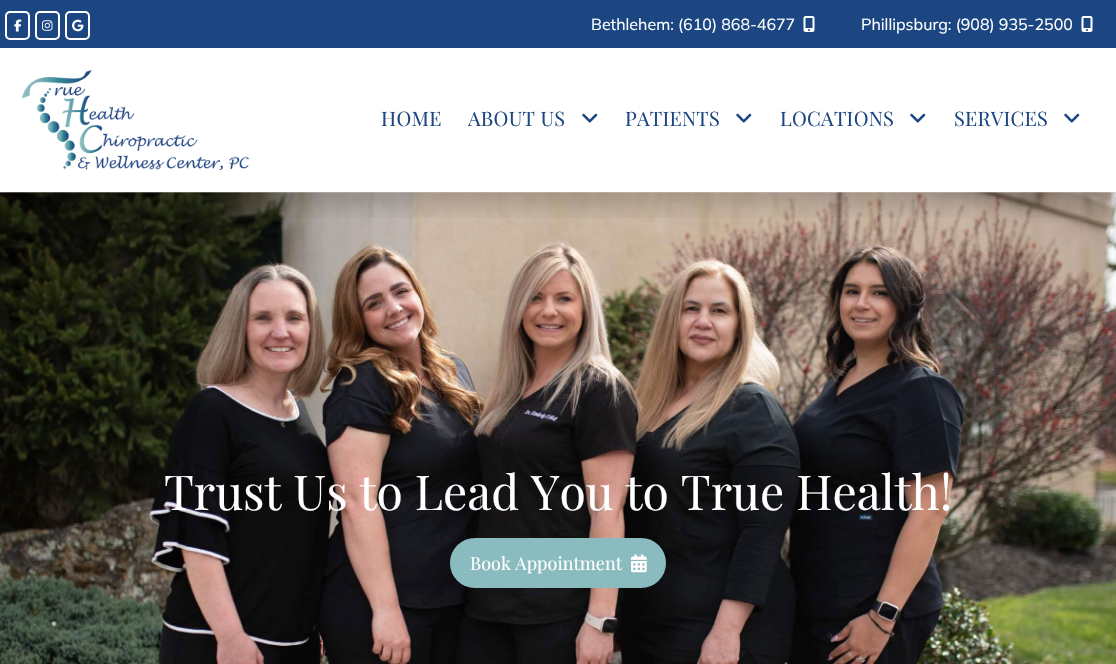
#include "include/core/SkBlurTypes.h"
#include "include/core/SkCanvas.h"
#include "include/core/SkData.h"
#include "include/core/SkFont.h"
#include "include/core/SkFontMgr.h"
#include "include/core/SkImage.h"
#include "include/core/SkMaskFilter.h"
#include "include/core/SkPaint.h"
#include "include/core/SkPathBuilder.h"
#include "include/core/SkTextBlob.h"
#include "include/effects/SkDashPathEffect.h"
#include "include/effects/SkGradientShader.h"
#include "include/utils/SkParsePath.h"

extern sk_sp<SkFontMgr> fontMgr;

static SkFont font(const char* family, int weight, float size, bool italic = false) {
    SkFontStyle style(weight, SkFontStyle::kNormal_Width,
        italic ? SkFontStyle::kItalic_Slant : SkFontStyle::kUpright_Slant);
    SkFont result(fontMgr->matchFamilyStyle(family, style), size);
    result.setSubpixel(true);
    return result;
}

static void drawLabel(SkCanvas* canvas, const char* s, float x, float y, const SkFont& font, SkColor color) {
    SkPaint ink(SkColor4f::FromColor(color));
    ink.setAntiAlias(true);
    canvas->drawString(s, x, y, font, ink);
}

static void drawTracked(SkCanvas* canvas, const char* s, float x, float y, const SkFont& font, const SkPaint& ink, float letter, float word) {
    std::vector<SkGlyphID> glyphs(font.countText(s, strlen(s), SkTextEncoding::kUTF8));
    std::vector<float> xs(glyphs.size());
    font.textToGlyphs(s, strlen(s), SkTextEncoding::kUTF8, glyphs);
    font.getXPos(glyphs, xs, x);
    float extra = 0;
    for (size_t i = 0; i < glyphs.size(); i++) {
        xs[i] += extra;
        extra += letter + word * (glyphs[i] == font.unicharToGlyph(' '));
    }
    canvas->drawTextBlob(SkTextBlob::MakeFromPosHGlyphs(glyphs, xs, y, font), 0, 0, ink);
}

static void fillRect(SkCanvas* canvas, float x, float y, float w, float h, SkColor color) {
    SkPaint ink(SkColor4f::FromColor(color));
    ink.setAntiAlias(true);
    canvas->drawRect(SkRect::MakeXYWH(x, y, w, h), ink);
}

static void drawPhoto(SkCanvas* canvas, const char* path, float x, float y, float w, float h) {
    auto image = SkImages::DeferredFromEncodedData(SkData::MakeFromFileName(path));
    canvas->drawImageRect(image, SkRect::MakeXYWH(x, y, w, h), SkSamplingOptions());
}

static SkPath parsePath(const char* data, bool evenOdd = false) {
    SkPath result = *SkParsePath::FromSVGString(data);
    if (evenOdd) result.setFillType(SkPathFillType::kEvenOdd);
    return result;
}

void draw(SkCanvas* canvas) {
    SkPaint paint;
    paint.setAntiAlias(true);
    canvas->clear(0xFFFFFFFF);
    fillRect(canvas, 0, 0, 1116, 48, 0xFF1B4681);
    paint.setStroke(true);
    paint.setStrokeWidth(2);
    paint.setColor(0xFFFFFFFF);
    canvas->drawRoundRect(SkRect::MakeXYWH(6, 12, 23, 27), 4, 4, paint);
    drawPhoto(canvas, "assets/img1.png", 14, 19, 8, 13);
    canvas->drawRoundRect(SkRect::MakeXYWH(36, 12, 23, 27), 4, 4, paint);
    drawPhoto(canvas, "assets/img2.png", 42, 20, 11, 11);
    canvas->drawRoundRect(SkRect::MakeXYWH(66, 12, 23, 27), 4, 4, paint);
    drawPhoto(canvas, "assets/img3.png", 72, 19, 12, 13);
    SkFont font1 = font("Mulish", 400, 16);
    drawLabel(canvas, "Bethlehem: (610) 868-4677", 591, 30, font1, 0xFFFFFFFF);
    drawPhoto(canvas, "assets/img4.png", 803, 16, 12, 16);
    drawLabel(canvas, "Phillipsburg: (908) 935-2500", 861, 30, font1, 0xFFFFFFFF);
    drawPhoto(canvas, "assets/img4.png", 1081, 16, 12, 16);
    drawPhoto(canvas, "assets/img7.png", 0, 192, 1116, 472);
    canvas->save();
    canvas->clipRect(SkRect::MakeXYWH(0, 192, 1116, 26));
    paint.setStroke(false);
    paint.setColor(0x2E000000);
    paint.setMaskFilter(SkMaskFilter::MakeBlur(kNormal_SkBlurStyle, 10));
    canvas->drawRect(SkRect::MakeXYWH(0, 62, 1116, 144), paint);
    paint.setMaskFilter(nullptr);
    canvas->restore();
    drawPhoto(canvas, "assets/img5.png", 22, 70, 227, 100);
    SkFont font2 = font("Playfair Display", 400, 20);
    paint.setColor(0xFF1B4681);
    drawTracked(canvas, "HOME", 381, 126, font2, paint, 0.25f, 0);
    drawTracked(canvas, "ABOUT US", 468, 126, font2, paint, 0.25f, 0);
    drawPhoto(canvas, "assets/img6.png", 582, 113, 16, 10);
    drawTracked(canvas, "PATIENTS", 625, 126, font2, paint, 0.25f, 0);
    drawPhoto(canvas, "assets/img6.png", 736, 113, 16, 10);
    drawTracked(canvas, "LOCATIONS", 780, 126, font2, paint, 0.25f, 0);
    drawPhoto(canvas, "assets/img6.png", 910, 113, 16, 10);
    drawTracked(canvas, "SERVICES", 954, 126, font2, paint, 0.25f, 0);
    drawPhoto(canvas, "assets/img6.png", 1064, 113, 16, 10);
    SkFont font3 = font("Playfair Display", 400, 48);
    drawLabel(canvas, "Trust Us to Lead You to True Health!", 164, 510, font3, 0xFFFFFFFF);
    paint.setColor(0xFF8ABBBF);
    canvas->drawRoundRect(SkRect::MakeXYWH(451, 539, 214, 48), 24, 24, paint);
    paint.setStroke(true);
    canvas->drawRoundRect(SkRect::MakeXYWH(451, 539, 214, 48), 24, 24, paint);
    SkFont font4 = font("Playfair Display", 400, 18);
    drawLabel(canvas, "Book Appointment", 470, 570, font4, 0xFFFFFFFF);
    drawPhoto(canvas, "assets/img8.png", 631, 554, 16, 19);
    canvas->save();
    canvas->clipPath(parsePath("M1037 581H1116V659H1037ZM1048 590H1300C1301 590 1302 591 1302 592V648C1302 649 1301 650 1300 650H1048C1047 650 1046 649 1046 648V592C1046 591 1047 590 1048 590Z", true), true);
    paint.setStroke(false);
    paint.setColor(0xFF808080);
    paint.setMaskFilter(SkMaskFilter::MakeBlur(kNormal_SkBlurStyle, 2.5f));
    canvas->drawRoundRect(SkRect::MakeXYWH(1046, 590, 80, 60), 2, 2, paint);
    paint.setMaskFilter(nullptr);
    canvas->restore();
}
